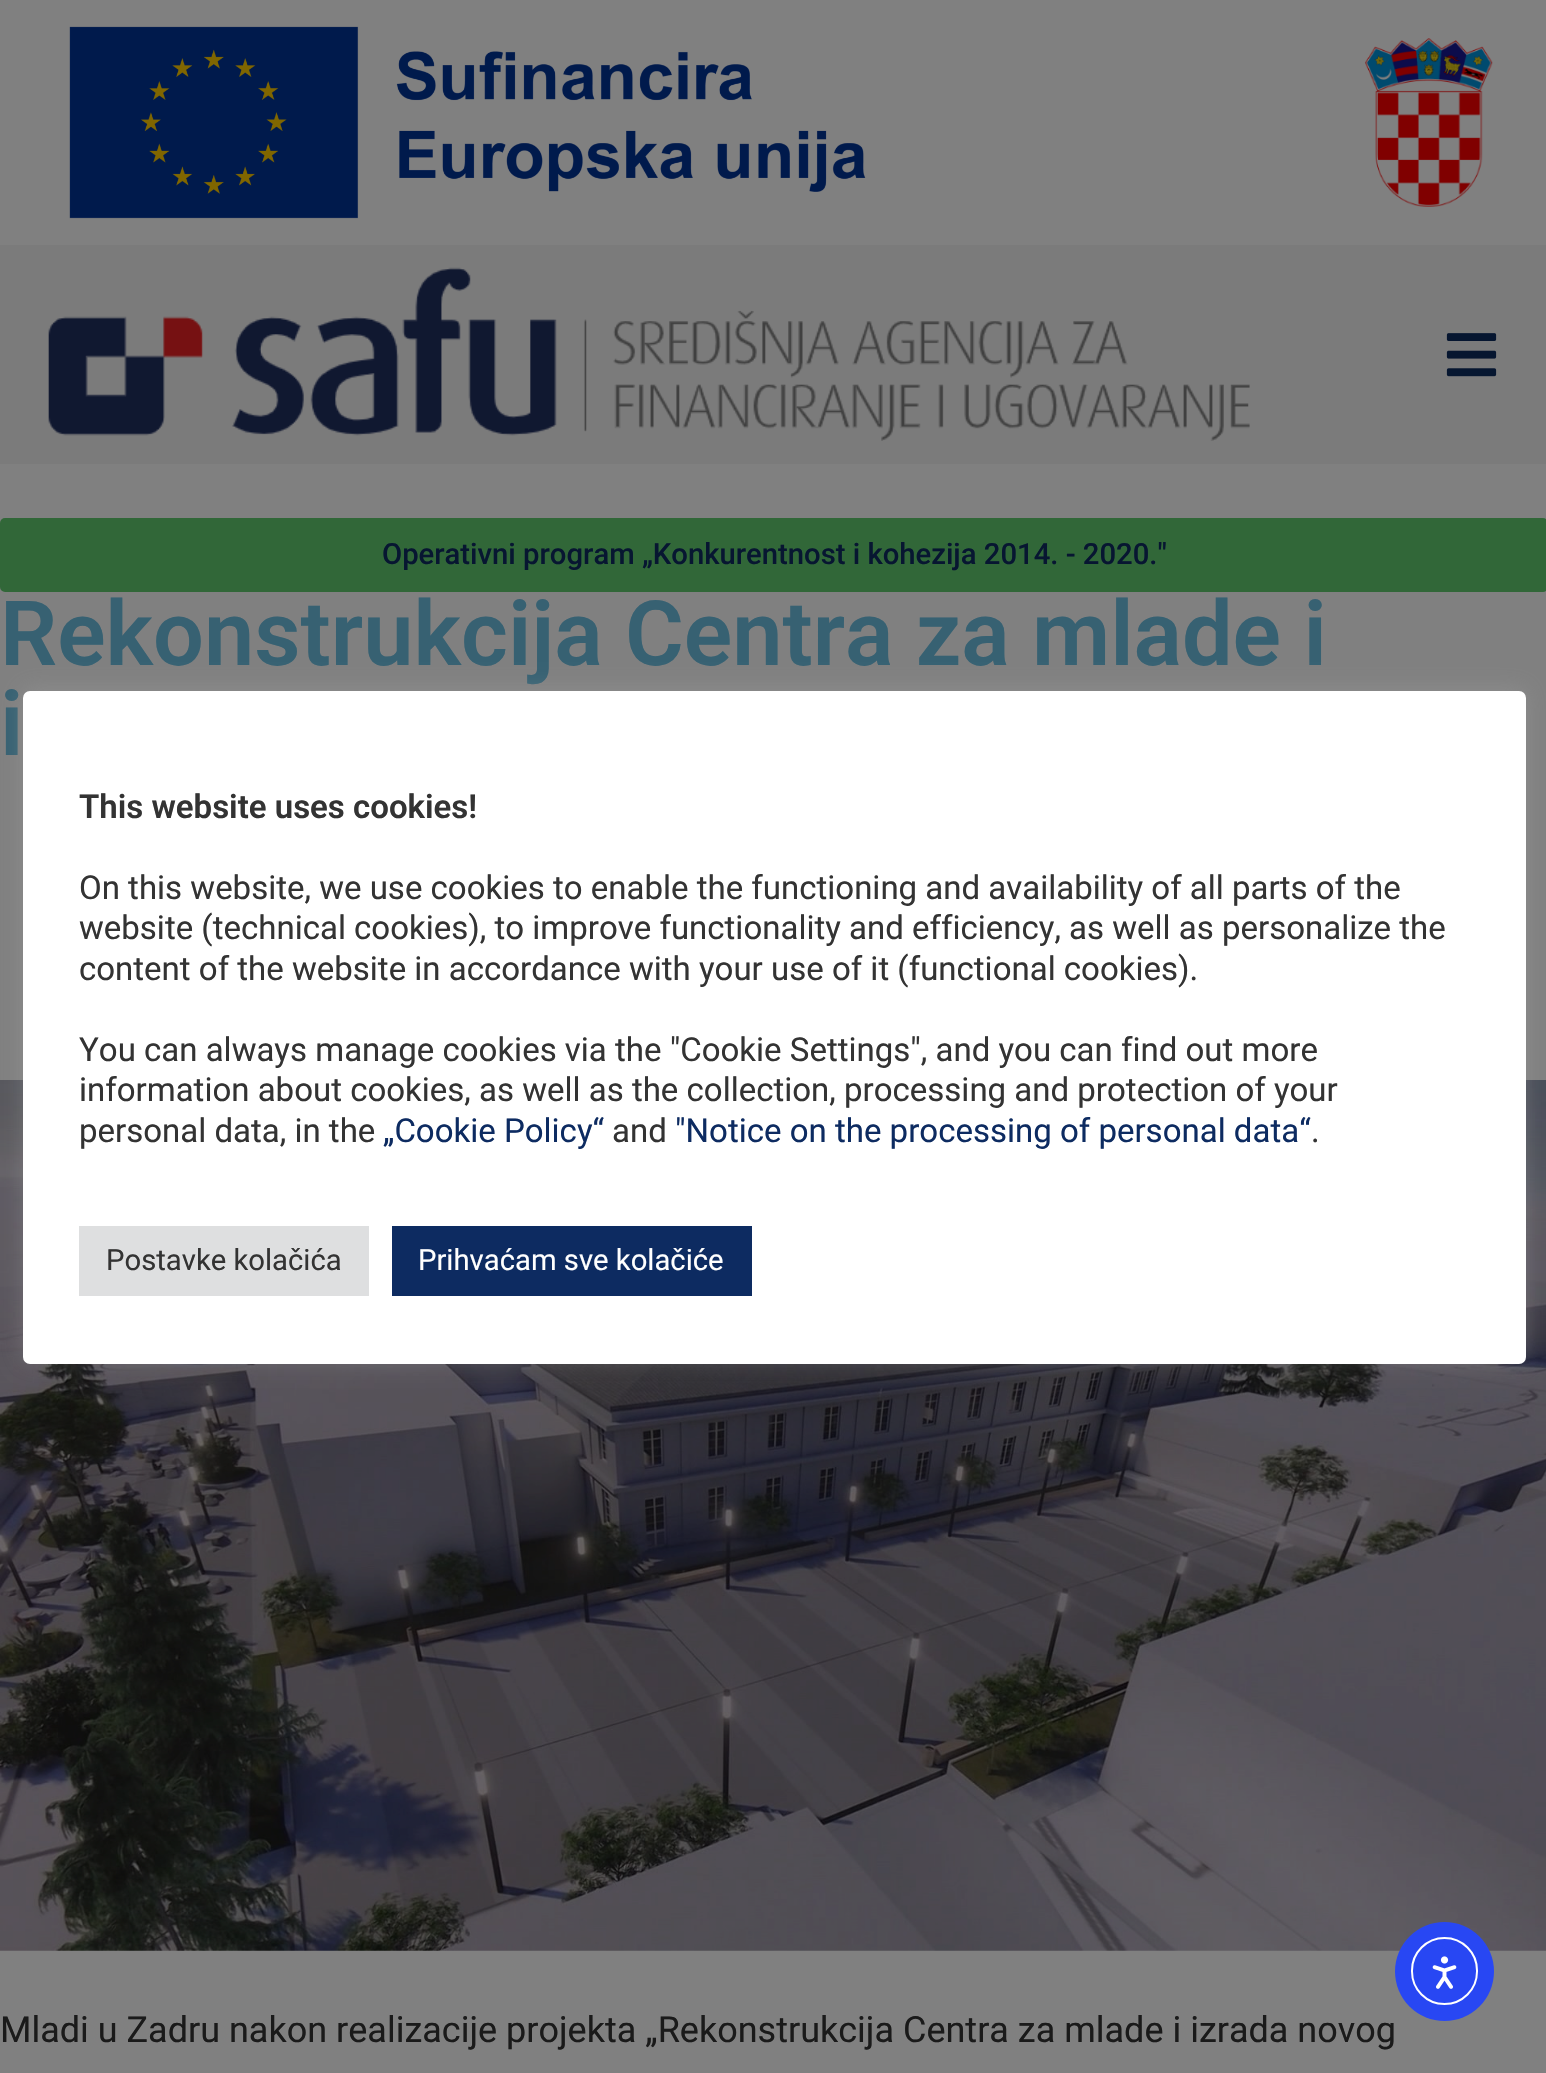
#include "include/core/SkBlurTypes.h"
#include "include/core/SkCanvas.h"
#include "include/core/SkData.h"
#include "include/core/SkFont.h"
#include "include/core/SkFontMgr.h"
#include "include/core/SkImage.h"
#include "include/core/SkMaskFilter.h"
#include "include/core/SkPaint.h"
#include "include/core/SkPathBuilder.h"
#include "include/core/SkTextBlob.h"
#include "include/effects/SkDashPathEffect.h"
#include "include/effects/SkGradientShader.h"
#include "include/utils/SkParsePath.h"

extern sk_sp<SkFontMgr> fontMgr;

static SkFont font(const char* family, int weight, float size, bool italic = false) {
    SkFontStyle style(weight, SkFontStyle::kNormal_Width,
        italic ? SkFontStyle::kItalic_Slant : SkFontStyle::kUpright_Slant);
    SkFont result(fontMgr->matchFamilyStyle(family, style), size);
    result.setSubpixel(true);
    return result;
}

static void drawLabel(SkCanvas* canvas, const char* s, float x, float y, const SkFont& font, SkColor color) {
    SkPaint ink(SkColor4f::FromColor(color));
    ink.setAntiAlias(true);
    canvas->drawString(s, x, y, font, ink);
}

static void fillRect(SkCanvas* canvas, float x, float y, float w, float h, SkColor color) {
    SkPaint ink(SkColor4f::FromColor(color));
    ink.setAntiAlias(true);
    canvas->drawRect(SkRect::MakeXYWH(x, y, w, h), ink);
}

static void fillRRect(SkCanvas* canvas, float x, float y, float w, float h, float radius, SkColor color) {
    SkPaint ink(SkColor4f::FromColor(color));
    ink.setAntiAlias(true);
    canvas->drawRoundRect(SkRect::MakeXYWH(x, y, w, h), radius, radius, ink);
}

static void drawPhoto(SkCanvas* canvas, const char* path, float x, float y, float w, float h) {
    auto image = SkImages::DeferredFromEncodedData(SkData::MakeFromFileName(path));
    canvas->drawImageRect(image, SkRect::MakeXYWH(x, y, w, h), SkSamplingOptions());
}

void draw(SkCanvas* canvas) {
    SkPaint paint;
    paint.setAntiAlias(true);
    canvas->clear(0xFF808080);
    drawPhoto(canvas, "assets/img1.png", 69, 26, 797, 193);
    drawPhoto(canvas, "assets/img2.png", 1365, 38, 128, 169);
    fillRect(canvas, 0, 245, 1546, 219, 0xFF7B7B7B);
    drawPhoto(canvas, "assets/img3.png", 48, 267, 1202, 174);
    drawPhoto(canvas, "assets/img4.png", 1446, 333, 51, 44);
    fillRRect(canvas, 0, 518, 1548, 74, 5, 0xFF316738);
    SkFont font1 = font("Roboto", 500, 29.25f);
    drawLabel(canvas, "Operativni program „Konkurentnost i kohezija 2014. - 2020.\"", 382, 564, font1, 0xFF071631);
    SkFont font2 = font("Roboto", 600, 90);
    drawLabel(canvas, "Rekonstrukcija Centra za mlade i", 0, 665, font2, 0xFF376172);
    drawLabel(canvas, "i", 0, 755, font2, 0xFF376172);
    drawPhoto(canvas, "assets/img5.png", 0, 1080, 1546, 871);
    SkFont font3 = font("Roboto", 400, 36);
    drawLabel(canvas, "Mladi u Zadru nakon realizacije projekta „Rekonstrukcija Centra za mlade i izrada novog", 0, 2042, font3, 0xFF1A1A1A);
    paint.setColor(0x4DACABAB);
    paint.setMaskFilter(SkMaskFilter::MakeBlur(kNormal_SkBlurStyle, 11));
    canvas->drawRoundRect(SkRect::MakeXYWH(23, 689, 1503, 672), 7, 7, paint);
    paint.setMaskFilter(nullptr);
    fillRRect(canvas, 23, 691, 1503, 673, 7, 0xFFFFFFFF);
    SkFont font4 = font("Roboto", 600, 33);
    drawLabel(canvas, "This website uses cookies!", 79, 818, font4, 0xFF333333);
    SkFont font5 = font("Roboto", 400, 33);
    drawLabel(canvas, "On this website, we use cookies to enable the functioning and availability of all parts of the", 79, 899, font5, 0xFF333333);
    drawLabel(canvas, "website (technical cookies), to improve functionality and efficiency, as well as personalize the", 79, 939, font5, 0xFF333333);
    drawLabel(canvas, "content of the website in accordance with your use of it (functional cookies).", 79, 980, font5, 0xFF333333);
    drawLabel(canvas, "You can always manage cookies via the \"Cookie Settings\", and you can find out more", 79, 1061, font5, 0xFF333333);
    drawLabel(canvas, "information about cookies, as well as the collection, processing and protection of your", 79, 1101, font5, 0xFF333333);
    drawLabel(canvas, "personal data, in the", 79, 1142, font5, 0xFF333333);
    drawLabel(canvas, "„Cookie Policy“", 383, 1142, font5, 0xFF0D2B61);
    drawLabel(canvas, "and", 612, 1142, font5, 0xFF333333);
    drawLabel(canvas, "\"Notice on the processing of personal data“", 675, 1142, font5, 0xFF0D2B61);
    drawLabel(canvas, ".", 1311, 1142, font5, 0xFF333333);
    fillRect(canvas, 79, 1226, 290, 70, 0xFFDEDFE0);
    SkFont font6 = font("Roboto", 400, 29.25f);
    drawLabel(canvas, "Postavke kolačića", 106, 1270, font6, 0xFF333333);
    fillRect(canvas, 392, 1226, 360, 70, 0xFF0D2B61);
    drawLabel(canvas, "Prihvaćam sve kolačiće", 418, 1270, font6, 0xFFFFFFFF);
    paint.setColor(0xFF2847F3);
    canvas->drawCircle(1444.5f, 1971.5f, 49.5f, paint);
    paint.setStroke(true);
    paint.setStrokeWidth(2);
    paint.setColor(0xFFFFFFFF);
    canvas->drawRoundRect(SkRect::MakeXYWH(1412, 1938, 65, 66), 32.5f, 32.5f, paint);
    drawPhoto(canvas, "assets/img6.png", 1432, 1956, 25, 33);
}
